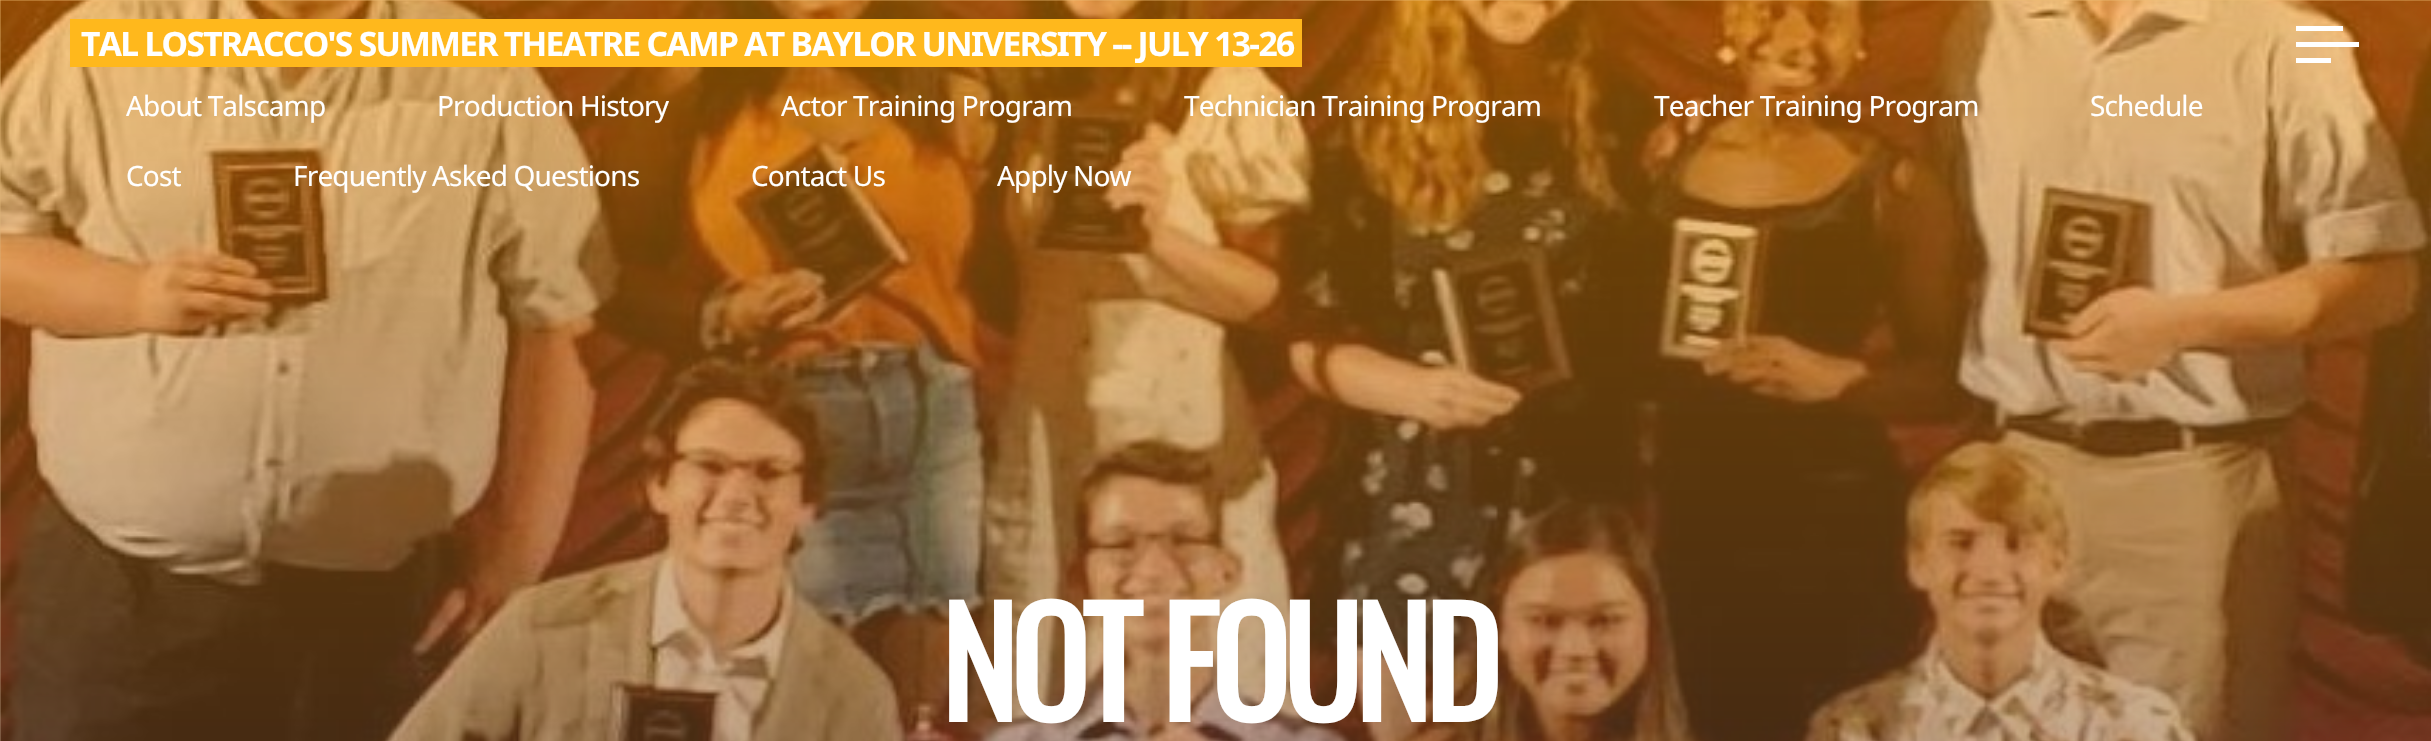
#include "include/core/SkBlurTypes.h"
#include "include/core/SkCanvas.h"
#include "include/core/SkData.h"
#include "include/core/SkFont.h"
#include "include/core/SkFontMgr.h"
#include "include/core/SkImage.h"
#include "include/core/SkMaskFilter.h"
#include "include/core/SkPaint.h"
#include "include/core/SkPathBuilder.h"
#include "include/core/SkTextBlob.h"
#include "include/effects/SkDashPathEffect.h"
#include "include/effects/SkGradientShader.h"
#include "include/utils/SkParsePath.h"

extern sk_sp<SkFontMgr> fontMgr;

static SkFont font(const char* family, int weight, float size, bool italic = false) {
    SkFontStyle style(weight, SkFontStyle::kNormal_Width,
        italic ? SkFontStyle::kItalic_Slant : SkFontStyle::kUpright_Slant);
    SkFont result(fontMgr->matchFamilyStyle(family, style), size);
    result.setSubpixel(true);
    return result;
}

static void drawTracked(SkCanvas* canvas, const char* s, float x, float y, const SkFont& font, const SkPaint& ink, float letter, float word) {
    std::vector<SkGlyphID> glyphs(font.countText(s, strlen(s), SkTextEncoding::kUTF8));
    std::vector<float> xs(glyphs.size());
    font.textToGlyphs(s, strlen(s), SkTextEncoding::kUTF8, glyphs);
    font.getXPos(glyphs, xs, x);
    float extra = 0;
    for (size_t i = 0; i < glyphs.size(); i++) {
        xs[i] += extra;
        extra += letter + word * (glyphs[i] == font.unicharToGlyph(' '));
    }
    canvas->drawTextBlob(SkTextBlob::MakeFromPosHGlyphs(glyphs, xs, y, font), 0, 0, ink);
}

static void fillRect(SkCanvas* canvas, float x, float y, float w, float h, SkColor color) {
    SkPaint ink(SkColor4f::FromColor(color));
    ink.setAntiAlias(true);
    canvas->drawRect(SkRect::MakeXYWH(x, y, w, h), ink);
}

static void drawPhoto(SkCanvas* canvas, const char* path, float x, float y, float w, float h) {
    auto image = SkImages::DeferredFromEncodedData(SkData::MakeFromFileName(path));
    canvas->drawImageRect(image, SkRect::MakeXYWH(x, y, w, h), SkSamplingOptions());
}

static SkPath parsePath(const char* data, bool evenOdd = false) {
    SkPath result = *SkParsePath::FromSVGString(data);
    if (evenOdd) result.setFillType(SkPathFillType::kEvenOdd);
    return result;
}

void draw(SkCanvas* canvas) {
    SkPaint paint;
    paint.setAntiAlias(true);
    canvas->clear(0xFFE6E8E6);
    drawPhoto(canvas, "assets/img1.png", 0, 0, 2431, 741);
    {
        const SkColor colors[] = {0x80F18F01, 0x80332142};
        const float stops[] = {0, 1};
        const SkPoint ends[] = {{1216, 0}, {1216, 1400}};
        paint.setShader(SkGradientShader::MakeLinear(ends, colors, stops, 2, SkTileMode::kClamp));
        paint.setAlpha(255);
    }
    canvas->drawPath(parsePath("M0 0V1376H1168L1216 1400L1265 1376H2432V0Z"), paint);
    fillRect(canvas, 70, 19, 1232, 48, 0xFFFFB81C);
    SkFont font1 = font("Noto Sans", 700, 33.6f);
    paint.setShader(nullptr);
    paint.setColor(0xFFFFFFFF);
    drawTracked(canvas, "TAL LOSTRACCO'S SUMMER THEATRE CAMP AT BAYLOR UNIVERSITY -- JULY 13-26", 81, 56, font1, paint, -1.68f, 0);
    fillRect(canvas, 2296, 26, 47, 5, 0xFFFFFFFF);
    fillRect(canvas, 2296, 42, 63, 5, 0xFFFFFFFF);
    fillRect(canvas, 2296, 58, 35, 5, 0xFFFFFFFF);
    SkFont font2 = font("Noto Sans", 400, 28);
    drawTracked(canvas, "About Talscamp", 126, 116, font2, paint, -0.85f, 0);
    drawTracked(canvas, "Production History", 437, 116, font2, paint, -0.85f, 0);
    drawTracked(canvas, "Actor Training Program", 781, 116, font2, paint, -0.85f, 0);
    drawTracked(canvas, "Technician Training Program", 1184, 116, font2, paint, -0.85f, 0);
    drawTracked(canvas, "Teacher Training Program", 1654, 116, font2, paint, -0.85f, 0);
    drawTracked(canvas, "Schedule", 2090, 116, font2, paint, -0.85f, 0);
    drawTracked(canvas, "Cost", 126, 186, font2, paint, -0.85f, 0);
    drawTracked(canvas, "Frequently Asked Questions", 293, 186, font2, paint, -0.85f, 0);
    drawTracked(canvas, "Contact Us", 751, 186, font2, paint, -0.85f, 0);
    drawTracked(canvas, "Apply Now", 997, 186, font2, paint, -0.85f, 0);
    SkFont font3 = font("Oswald", 700, 146);
    drawTracked(canvas, "NOT FOUND", 940, 722, font3, paint, -7.25f, 0);
}
